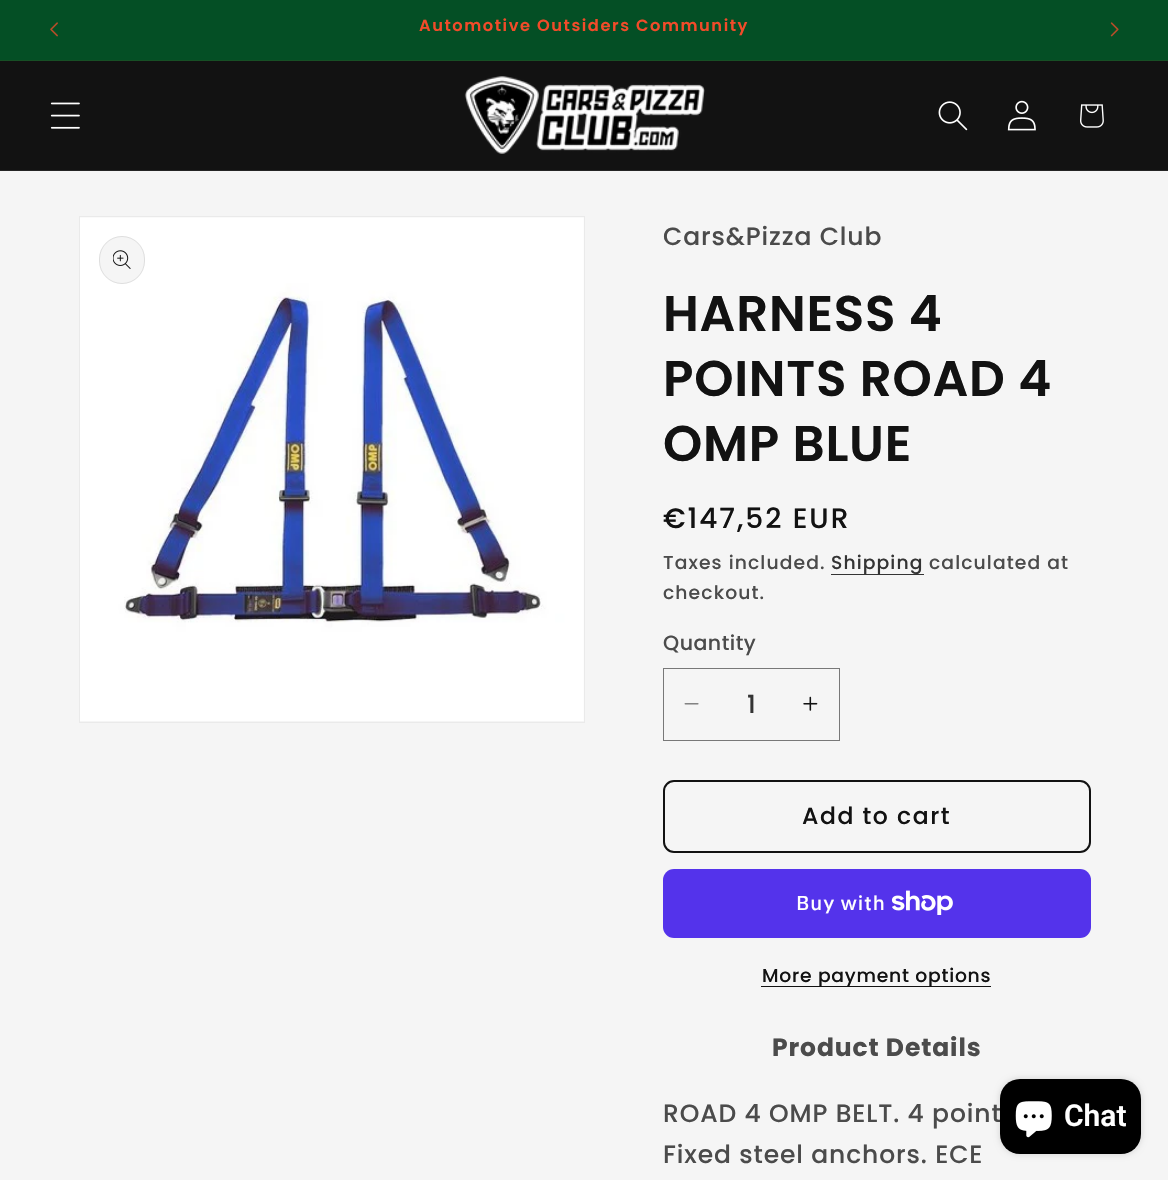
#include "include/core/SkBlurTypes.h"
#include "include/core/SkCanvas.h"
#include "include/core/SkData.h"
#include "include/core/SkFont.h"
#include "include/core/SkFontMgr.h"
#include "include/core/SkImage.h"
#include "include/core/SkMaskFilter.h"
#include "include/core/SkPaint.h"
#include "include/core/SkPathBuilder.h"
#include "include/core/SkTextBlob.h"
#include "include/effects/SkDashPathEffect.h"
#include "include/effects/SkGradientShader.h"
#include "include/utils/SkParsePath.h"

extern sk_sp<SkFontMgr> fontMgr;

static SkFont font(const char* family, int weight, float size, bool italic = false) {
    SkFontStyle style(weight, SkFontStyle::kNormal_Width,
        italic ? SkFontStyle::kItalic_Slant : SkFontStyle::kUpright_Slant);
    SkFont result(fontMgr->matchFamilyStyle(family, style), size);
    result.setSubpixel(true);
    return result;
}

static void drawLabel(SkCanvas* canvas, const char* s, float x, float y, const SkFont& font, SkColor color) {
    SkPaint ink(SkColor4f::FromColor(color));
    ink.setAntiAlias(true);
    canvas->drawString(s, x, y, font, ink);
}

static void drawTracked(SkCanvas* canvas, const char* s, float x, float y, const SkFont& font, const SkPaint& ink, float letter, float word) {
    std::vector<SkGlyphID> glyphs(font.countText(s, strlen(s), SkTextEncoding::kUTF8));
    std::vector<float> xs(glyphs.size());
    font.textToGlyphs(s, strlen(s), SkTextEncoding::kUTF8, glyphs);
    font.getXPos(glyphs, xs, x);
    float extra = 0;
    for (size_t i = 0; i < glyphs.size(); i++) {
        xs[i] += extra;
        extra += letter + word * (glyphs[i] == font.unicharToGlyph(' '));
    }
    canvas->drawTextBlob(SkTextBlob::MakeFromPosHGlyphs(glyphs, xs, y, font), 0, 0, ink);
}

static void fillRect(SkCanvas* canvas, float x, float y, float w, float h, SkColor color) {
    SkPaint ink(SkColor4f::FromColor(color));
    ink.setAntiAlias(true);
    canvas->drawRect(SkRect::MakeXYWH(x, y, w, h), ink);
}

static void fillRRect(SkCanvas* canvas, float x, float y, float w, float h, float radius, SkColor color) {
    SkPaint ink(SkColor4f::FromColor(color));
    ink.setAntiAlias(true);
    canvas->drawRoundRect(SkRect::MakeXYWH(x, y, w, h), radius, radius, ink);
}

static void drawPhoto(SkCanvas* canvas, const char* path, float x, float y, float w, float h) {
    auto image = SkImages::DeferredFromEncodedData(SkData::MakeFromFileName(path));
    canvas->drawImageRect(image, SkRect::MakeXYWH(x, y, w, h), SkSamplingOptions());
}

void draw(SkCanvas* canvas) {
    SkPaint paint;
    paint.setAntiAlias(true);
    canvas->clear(0xFFF5F5F5);
    fillRect(canvas, 0, 0, 1168, 60, 0xFF044F25);
    fillRect(canvas, 0, 60, 1168, 1, 0xFF174F25);
    drawPhoto(canvas, "assets/img1.png", 50, 22, 8, 15);
    SkFont font1 = font("Poppins", 600, 16.25f);
    paint.setColor(0xFFF24B29);
    drawTracked(canvas, "Automotive Outsiders Community", 419, 31, font1, paint, 1.55f, 0);
    drawPhoto(canvas, "assets/img2.png", 1110, 22, 9, 15);
    fillRect(canvas, 0, 61, 1168, 109, 0xFF121212);
    fillRect(canvas, 0, 170, 1168, 1, 0xFF252525);
    drawPhoto(canvas, "assets/img3.png", 50, 102, 30, 27);
    drawPhoto(canvas, "assets/img4.png", 464, 76, 241, 78);
    drawPhoto(canvas, "assets/img5.png", 938, 101, 30, 30);
    drawPhoto(canvas, "assets/img6.png", 1007, 100, 29, 31);
    drawPhoto(canvas, "assets/img7.png", 1080, 104, 24, 24);
    paint.setStroke(true);
    paint.setStrokeWidth(1);
    paint.setColor(0xFFEAEAEA);
    canvas->drawRect(SkRect::MakeXYWH(79.5f, 216.5f, 505, 506), paint);
    drawPhoto(canvas, "assets/img8.png", 80, 217, 504, 504);
    fillRRect(canvas, 99, 236, 46, 48, 23, 0xFFF5F5F5);
    paint.setColor(0x1A121212);
    canvas->drawRoundRect(SkRect::MakeXYWH(99.5f, 236.5f, 45, 47), 22.5f, 22.5f, paint);
    drawPhoto(canvas, "assets/img9.png", 113, 250, 18, 19);
    SkFont font2 = font("Poppins", 500, 25);
    paint.setStroke(false);
    paint.setColor(0xFF4B4B4B);
    drawTracked(canvas, "Cars&Pizza Club", 663, 245, font2, paint, 0.9f, 0);
    SkFont font3 = font("Poppins", 600, 50);
    paint.setColor(0xFF121212);
    drawTracked(canvas, "HARNESS 4", 663, 331, font3, paint, 0.75f, 0);
    drawTracked(canvas, "POINTS ROAD 4", 663, 396, font3, paint, 0.75f, 0);
    drawTracked(canvas, "OMP BLUE", 663, 461, font3, paint, 0.75f, 0);
    SkFont font4 = font("Poppins", 500, 28);
    drawTracked(canvas, "€147,52 EUR", 663, 528, font4, paint, 2, 0);
    SkFont font5 = font("Poppins", 500, 18.75f);
    paint.setColor(0xFF4B4B4B);
    drawTracked(canvas, "Taxes included.", 663, 569, font5, paint, 1.1f, 0);
    fillRect(canvas, 831, 574, 93, 1, 0xFF343434);
    paint.setColor(0xFF343434);
    drawTracked(canvas, "Shipping", 831, 569, font5, paint, 1.1f, 0);
    paint.setColor(0xFF4B4B4B);
    drawTracked(canvas, "calculated at", 929, 569, font5, paint, 1.1f, 0);
    drawTracked(canvas, "checkout.", 663, 599, font5, paint, 1.1f, 0);
    SkFont font6 = font("Poppins", 500, 20.5f);
    drawTracked(canvas, "Quantity", 663, 650, font6, paint, 0.5f, 0);
    drawPhoto(canvas, "assets/img10.png", 684, 703, 15, 2);
    drawPhoto(canvas, "assets/img11.png", 803, 696, 15, 15);
    paint.setStroke(true);
    paint.setColor(0xFF787878);
    canvas->drawRect(SkRect::MakeXYWH(663.5f, 668.5f, 176, 72), paint);
    drawLabel(canvas, "1", 747, 713, font2, 0xFF343434);
    paint.setStrokeWidth(2);
    paint.setColor(0xFF121212);
    canvas->drawRoundRect(SkRect::MakeXYWH(664, 781, 426, 71), 10, 10, paint);
    SkFont font7 = font("Poppins", 500, 23.5f);
    paint.setStroke(false);
    drawTracked(canvas, "Add to cart", 802, 824, font7, paint, 1.55f, 0);
    fillRRect(canvas, 663, 869, 428, 69, 11, 0xFF5433EB);
    SkFont font8 = font("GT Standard", 500, 20);
    paint.setColor(0xFFFFFFFF);
    drawTracked(canvas, "Buy with", 796, 910, font8, paint, 0.9f, 0);
    drawPhoto(canvas, "assets/img12.png", 891, 890, 62, 25);
    fillRect(canvas, 761, 986, 230, 1, 0xFF121212);
    paint.setColor(0xFF121212);
    drawTracked(canvas, "More payment options", 762, 982, font5, paint, 0.75f, 0);
    SkFont font9 = font("Poppins", 700, 25);
    paint.setColor(0xFF4B4B4B);
    drawTracked(canvas, "Product Details", 772, 1056, font9, paint, 0.9f, 0);
    drawTracked(canvas, "ROAD 4 OMP BELT. 4 point", 663, 1122, font2, paint, 0.9f, 0);
    drawTracked(canvas, "Fixed steel anchors. ECE", 663, 1163, font2, paint, 0.9f, 0);
    paint.setColor(0x26000000);
    paint.setMaskFilter(SkMaskFilter::MakeBlur(kNormal_SkBlurStyle, 3));
    canvas->drawRoundRect(SkRect::MakeXYWH(1000, 1079, 141, 75), 20, 20, paint);
    paint.setMaskFilter(nullptr);
    fillRRect(canvas, 1000, 1079, 141, 75, 20, 0xFF000000);
    drawPhoto(canvas, "assets/img13.png", 1015, 1101, 37, 37);
    SkFont font10 = font("Roboto", 600, 30);
    drawLabel(canvas, "Chat", 1064, 1126, font10, 0xFFFFFFFF);
}
